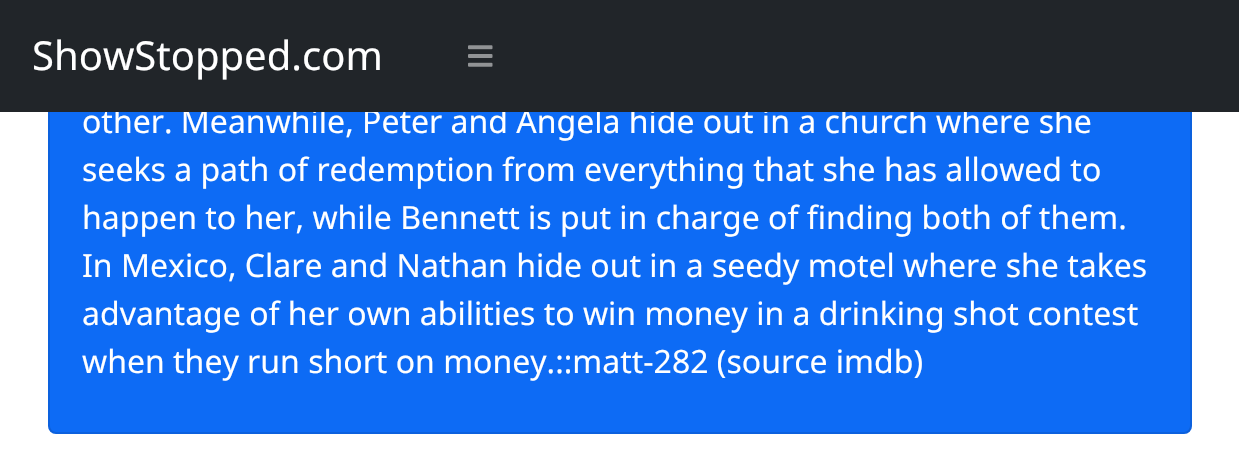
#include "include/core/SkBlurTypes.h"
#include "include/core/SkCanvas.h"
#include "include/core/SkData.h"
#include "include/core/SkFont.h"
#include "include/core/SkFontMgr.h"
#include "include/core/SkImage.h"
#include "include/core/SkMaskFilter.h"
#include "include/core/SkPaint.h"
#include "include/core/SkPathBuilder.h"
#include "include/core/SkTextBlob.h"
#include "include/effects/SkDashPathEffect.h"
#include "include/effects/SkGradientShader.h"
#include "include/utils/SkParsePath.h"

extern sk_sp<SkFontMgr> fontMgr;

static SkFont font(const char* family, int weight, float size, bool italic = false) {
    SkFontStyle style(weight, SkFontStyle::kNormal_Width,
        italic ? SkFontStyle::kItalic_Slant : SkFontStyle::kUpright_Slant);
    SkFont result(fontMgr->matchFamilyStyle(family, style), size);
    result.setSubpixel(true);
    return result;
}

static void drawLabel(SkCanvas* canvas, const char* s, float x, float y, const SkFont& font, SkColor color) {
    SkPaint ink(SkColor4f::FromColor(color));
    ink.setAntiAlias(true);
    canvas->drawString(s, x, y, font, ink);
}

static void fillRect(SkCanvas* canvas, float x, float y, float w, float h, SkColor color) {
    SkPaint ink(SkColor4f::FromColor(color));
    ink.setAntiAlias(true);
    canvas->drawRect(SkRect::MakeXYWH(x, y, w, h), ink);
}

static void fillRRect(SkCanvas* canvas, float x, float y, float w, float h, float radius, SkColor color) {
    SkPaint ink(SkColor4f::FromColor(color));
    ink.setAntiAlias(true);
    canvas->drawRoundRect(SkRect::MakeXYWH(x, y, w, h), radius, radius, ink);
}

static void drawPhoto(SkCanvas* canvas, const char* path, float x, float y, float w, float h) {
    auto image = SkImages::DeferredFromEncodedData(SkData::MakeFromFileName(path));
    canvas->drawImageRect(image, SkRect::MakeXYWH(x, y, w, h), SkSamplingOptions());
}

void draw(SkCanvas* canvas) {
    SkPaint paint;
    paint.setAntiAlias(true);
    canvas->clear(0xFFFFFFFF);
    fillRRect(canvas, 48, -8, 1144, 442, 8, 0xFF0D6EFD);
    paint.setStroke(true);
    paint.setStrokeWidth(2);
    paint.setColor(0x1F000000);
    canvas->drawRoundRect(SkRect::MakeXYWH(49, -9, 1142, 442), 7, 7, paint);
    fillRect(canvas, 50, 112, 1140, 320, 0x08000000);
    SkFont font1 = font("Noto Sans", 400, 32);
    drawLabel(canvas, "other. Meanwhile, Peter and Angela hide out in a church where she", 82, 133, font1, 0xFFFFFFFF);
    fillRect(canvas, 0, 0, 1239, 112, 0xFF212529);
    SkFont font2 = font("Noto Sans", 400, 40);
    drawLabel(canvas, "ShowStopped.com", 32, 70, font2, 0xFFFFFFFF);
    drawPhoto(canvas, "assets/img1.png", 468, 45, 25, 22);
    drawLabel(canvas, "seeks a path of redemption from everything that she has allowed to", 82, 181, font1, 0xFFFFFFFF);
    drawLabel(canvas, "happen to her, while Bennett is put in charge of finding both of them.", 82, 229, font1, 0xFFFFFFFF);
    drawLabel(canvas, "In Mexico, Clare and Nathan hide out in a seedy motel where she takes", 82, 277, font1, 0xFFFFFFFF);
    drawLabel(canvas, "advantage of her own abilities to win money in a drinking shot contest", 82, 325, font1, 0xFFFFFFFF);
    drawLabel(canvas, "when they run short on money.::matt-282 (source imdb)", 82, 373, font1, 0xFFFFFFFF);
}
